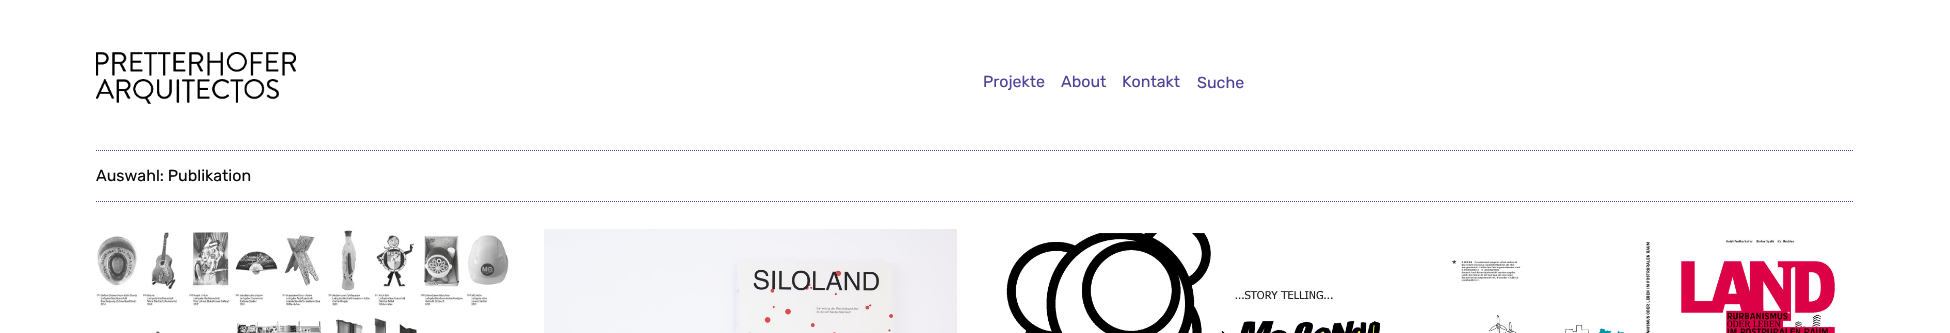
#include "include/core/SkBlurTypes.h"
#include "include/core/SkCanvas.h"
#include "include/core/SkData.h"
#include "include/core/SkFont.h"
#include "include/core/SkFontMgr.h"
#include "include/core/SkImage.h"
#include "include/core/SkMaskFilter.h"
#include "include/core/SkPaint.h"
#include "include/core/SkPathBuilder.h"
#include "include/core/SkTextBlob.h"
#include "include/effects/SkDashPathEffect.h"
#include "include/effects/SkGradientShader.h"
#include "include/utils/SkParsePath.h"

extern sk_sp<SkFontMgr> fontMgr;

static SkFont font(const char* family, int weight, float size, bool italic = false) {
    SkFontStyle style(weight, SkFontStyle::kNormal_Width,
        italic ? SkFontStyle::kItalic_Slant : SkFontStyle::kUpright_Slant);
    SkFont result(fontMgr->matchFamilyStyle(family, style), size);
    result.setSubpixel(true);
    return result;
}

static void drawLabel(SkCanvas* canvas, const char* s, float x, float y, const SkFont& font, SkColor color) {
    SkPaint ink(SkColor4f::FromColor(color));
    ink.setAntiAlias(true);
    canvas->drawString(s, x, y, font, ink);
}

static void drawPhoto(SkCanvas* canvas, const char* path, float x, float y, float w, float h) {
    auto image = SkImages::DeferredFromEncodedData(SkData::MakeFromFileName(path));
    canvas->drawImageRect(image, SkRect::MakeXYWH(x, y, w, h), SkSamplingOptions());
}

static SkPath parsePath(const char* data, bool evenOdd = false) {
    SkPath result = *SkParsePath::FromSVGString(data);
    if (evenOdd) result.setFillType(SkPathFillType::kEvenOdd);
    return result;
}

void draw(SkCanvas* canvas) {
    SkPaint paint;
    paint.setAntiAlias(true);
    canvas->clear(0xFFFFFFFF);
    drawPhoto(canvas, "assets/img1.png", 96, 52, 200, 52);
    SkFont font1 = font("Rubik", 400, 16);
    drawLabel(canvas, "Projekte", 983, 87, font1, 0xFF51429B);
    drawLabel(canvas, "About", 1061, 87, font1, 0xFF51429B);
    drawLabel(canvas, "Kontakt", 1122, 87, font1, 0xFF51429B);
    drawLabel(canvas, "Suche", 1197, 88, font1, 0xFF51429B);
    paint.setStroke(true);
    paint.setStrokeWidth(1);
    paint.setColor(0xFF51429B);
    paint.setPathEffect(SkDashPathEffect::Make({{1, 1}}, 0));
    canvas->drawPath(parsePath("M96 150.5H1854"), paint);
    paint.setPathEffect(nullptr);
    paint.setPathEffect(SkDashPathEffect::Make({{1, 1}}, 0));
    canvas->drawPath(parsePath("M96 201.5H1854"), paint);
    paint.setPathEffect(nullptr);
    drawLabel(canvas, "Auswahl: Publikation", 96, 181, font1, 0xFF0A0A0A);
    drawPhoto(canvas, "assets/img2.png", 96, 230, 413, 103);
    drawPhoto(canvas, "assets/img3.png", 544, 229, 413, 104);
    drawPhoto(canvas, "assets/img4.png", 1006, 233, 375, 100);
    drawPhoto(canvas, "assets/img5.png", 1452, 239, 383, 94);
}
